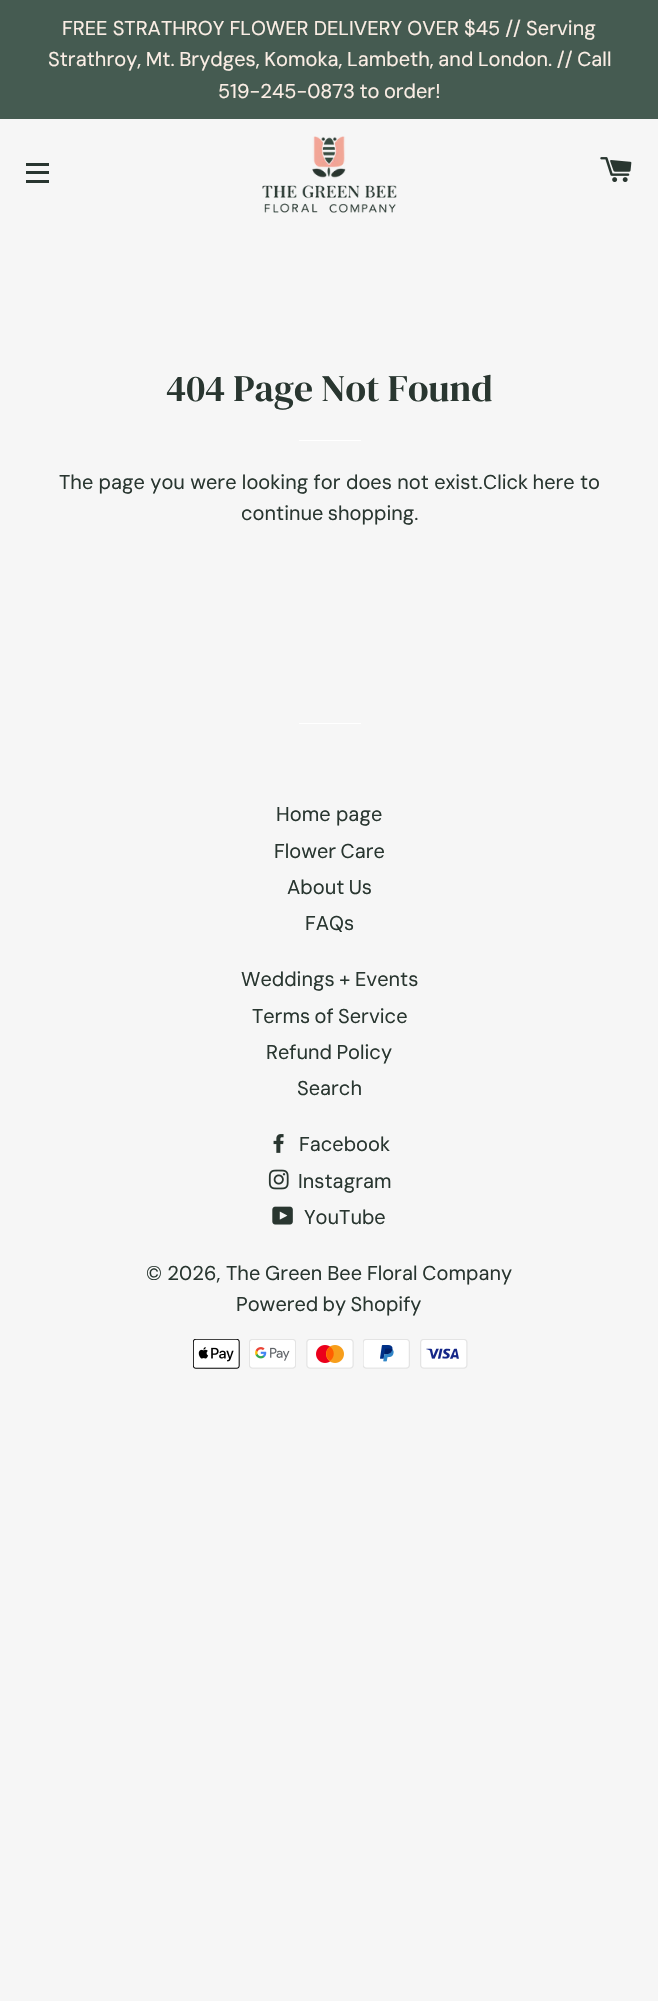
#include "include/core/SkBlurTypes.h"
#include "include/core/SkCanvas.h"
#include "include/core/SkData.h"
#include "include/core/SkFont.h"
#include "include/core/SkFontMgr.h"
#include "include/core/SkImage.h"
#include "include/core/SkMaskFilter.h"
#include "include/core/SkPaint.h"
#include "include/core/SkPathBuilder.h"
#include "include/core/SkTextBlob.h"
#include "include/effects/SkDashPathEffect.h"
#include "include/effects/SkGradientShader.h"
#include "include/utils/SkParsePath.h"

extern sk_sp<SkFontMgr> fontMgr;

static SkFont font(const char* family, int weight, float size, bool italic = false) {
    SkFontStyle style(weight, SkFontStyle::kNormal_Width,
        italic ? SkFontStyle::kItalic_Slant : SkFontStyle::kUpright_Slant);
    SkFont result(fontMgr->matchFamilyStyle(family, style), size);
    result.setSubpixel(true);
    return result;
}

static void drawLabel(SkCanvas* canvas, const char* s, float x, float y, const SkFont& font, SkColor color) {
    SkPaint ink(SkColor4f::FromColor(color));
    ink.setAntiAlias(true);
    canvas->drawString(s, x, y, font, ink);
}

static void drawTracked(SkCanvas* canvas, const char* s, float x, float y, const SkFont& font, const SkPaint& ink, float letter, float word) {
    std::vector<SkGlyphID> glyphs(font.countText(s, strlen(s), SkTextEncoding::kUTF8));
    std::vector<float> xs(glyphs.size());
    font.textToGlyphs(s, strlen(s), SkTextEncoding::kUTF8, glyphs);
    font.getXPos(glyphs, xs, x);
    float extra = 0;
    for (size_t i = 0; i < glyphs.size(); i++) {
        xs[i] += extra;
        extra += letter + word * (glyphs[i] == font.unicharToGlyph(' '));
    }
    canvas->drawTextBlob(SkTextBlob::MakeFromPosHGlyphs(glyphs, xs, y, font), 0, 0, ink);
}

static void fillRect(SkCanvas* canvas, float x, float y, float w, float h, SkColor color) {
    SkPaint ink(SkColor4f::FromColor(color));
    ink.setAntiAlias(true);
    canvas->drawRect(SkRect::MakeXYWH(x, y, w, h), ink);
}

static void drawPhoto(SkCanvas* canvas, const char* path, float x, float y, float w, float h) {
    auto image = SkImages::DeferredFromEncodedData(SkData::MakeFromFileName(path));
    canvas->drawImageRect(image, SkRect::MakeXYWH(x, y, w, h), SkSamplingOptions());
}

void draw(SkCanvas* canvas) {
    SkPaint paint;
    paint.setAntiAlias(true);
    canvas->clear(0xFFF6F6F6);
    fillRect(canvas, 0, 0, 658, 119, 0xFF455B51);
    SkFont font1 = font("DM Sans", 400, 20);
    paint.setColor(0xFFFBEEE5);
    drawTracked(canvas, "FREE STRATHROY FLOWER DELIVERY OVER $45 // Serving", 62, 35, font1, paint, 0, -0.25f);
    drawTracked(canvas, "Strathroy, Mt. Brydges, Komoka, Lambeth, and London. // Call", 48, 66, font1, paint, 0, -0.75f);
    drawTracked(canvas, "519-245-0873 to order!", 218, 98, font1, paint, 0, -1);
    fillRect(canvas, 26, 163, 23, 3, 0xFF293630);
    fillRect(canvas, 26, 171, 23, 3, 0xFF293630);
    fillRect(canvas, 26, 180, 23, 3, 0xFF293630);
    drawPhoto(canvas, "assets/img1.png", 262, 136, 135, 77);
    drawPhoto(canvas, "assets/img2.png", 600, 157, 32, 25);
    SkFont font2 = font("DM Serif Display", 400, 37.5f);
    drawLabel(canvas, "404 Page Not Found", 166, 401, font2, 0xFF293630);
    fillRect(canvas, 299, 440, 62, 1, 0xFFFFFFFF);
    drawLabel(canvas, "The page you were looking for does not exist.", 59, 489, font1, 0xFF293630);
    paint.setColor(0xFF293630);
    drawTracked(canvas, "Click here", 483, 489, font1, paint, 0, -1);
    drawLabel(canvas, "to", 580, 489, font1, 0xFF293630);
    drawTracked(canvas, "continue shopping.", 241, 520, font1, paint, 0, -1);
    fillRect(canvas, 299, 723, 62, 1, 0xFFFFFFFF);
    drawLabel(canvas, "Home page", 276, 821, font1, 0xFF293630);
    drawTracked(canvas, "Flower Care", 274, 858, font1, paint, 0, -1);
    drawTracked(canvas, "About Us", 287, 894, font1, paint, 0, -1);
    drawLabel(canvas, "FAQs", 305, 930, font1, 0xFF293630);
    drawTracked(canvas, "Weddings + Events", 241, 986, font1, paint, 0, -0.75f);
    drawTracked(canvas, "Terms of Service", 252, 1023, font1, paint, 0, -1);
    drawTracked(canvas, "Refund Policy", 266, 1059, font1, paint, 0, -1);
    drawLabel(canvas, "Search", 297, 1095, font1, 0xFF293630);
    drawPhoto(canvas, "assets/img3.png", 273, 1134, 11, 19);
    drawLabel(canvas, "Facebook", 299, 1151, font1, 0xFF293630);
    drawPhoto(canvas, "assets/img4.png", 268, 1169, 21, 21);
    drawLabel(canvas, "Instagram", 298, 1188, font1, 0xFF293630);
    drawPhoto(canvas, "assets/img5.png", 272, 1206, 21, 19);
    drawLabel(canvas, "YouTube", 304, 1224, font1, 0xFF293630);
    drawLabel(canvas, "© 2026,", 146, 1280, font1, 0xFF293630);
    drawTracked(canvas, "The Green Bee Floral Company", 226, 1280, font1, paint, 0, -0.5f);
    drawTracked(canvas, "Powered by Shopify", 236, 1311, font1, paint, 0, -1);
    drawPhoto(canvas, "assets/img6.png", 193, 1339, 47, 30);
    drawPhoto(canvas, "assets/img7.png", 249, 1339, 47, 30);
    drawPhoto(canvas, "assets/img8.png", 306, 1339, 48, 30);
    drawPhoto(canvas, "assets/img9.png", 363, 1339, 47, 30);
    drawPhoto(canvas, "assets/img10.png", 420, 1339, 48, 30);
}
